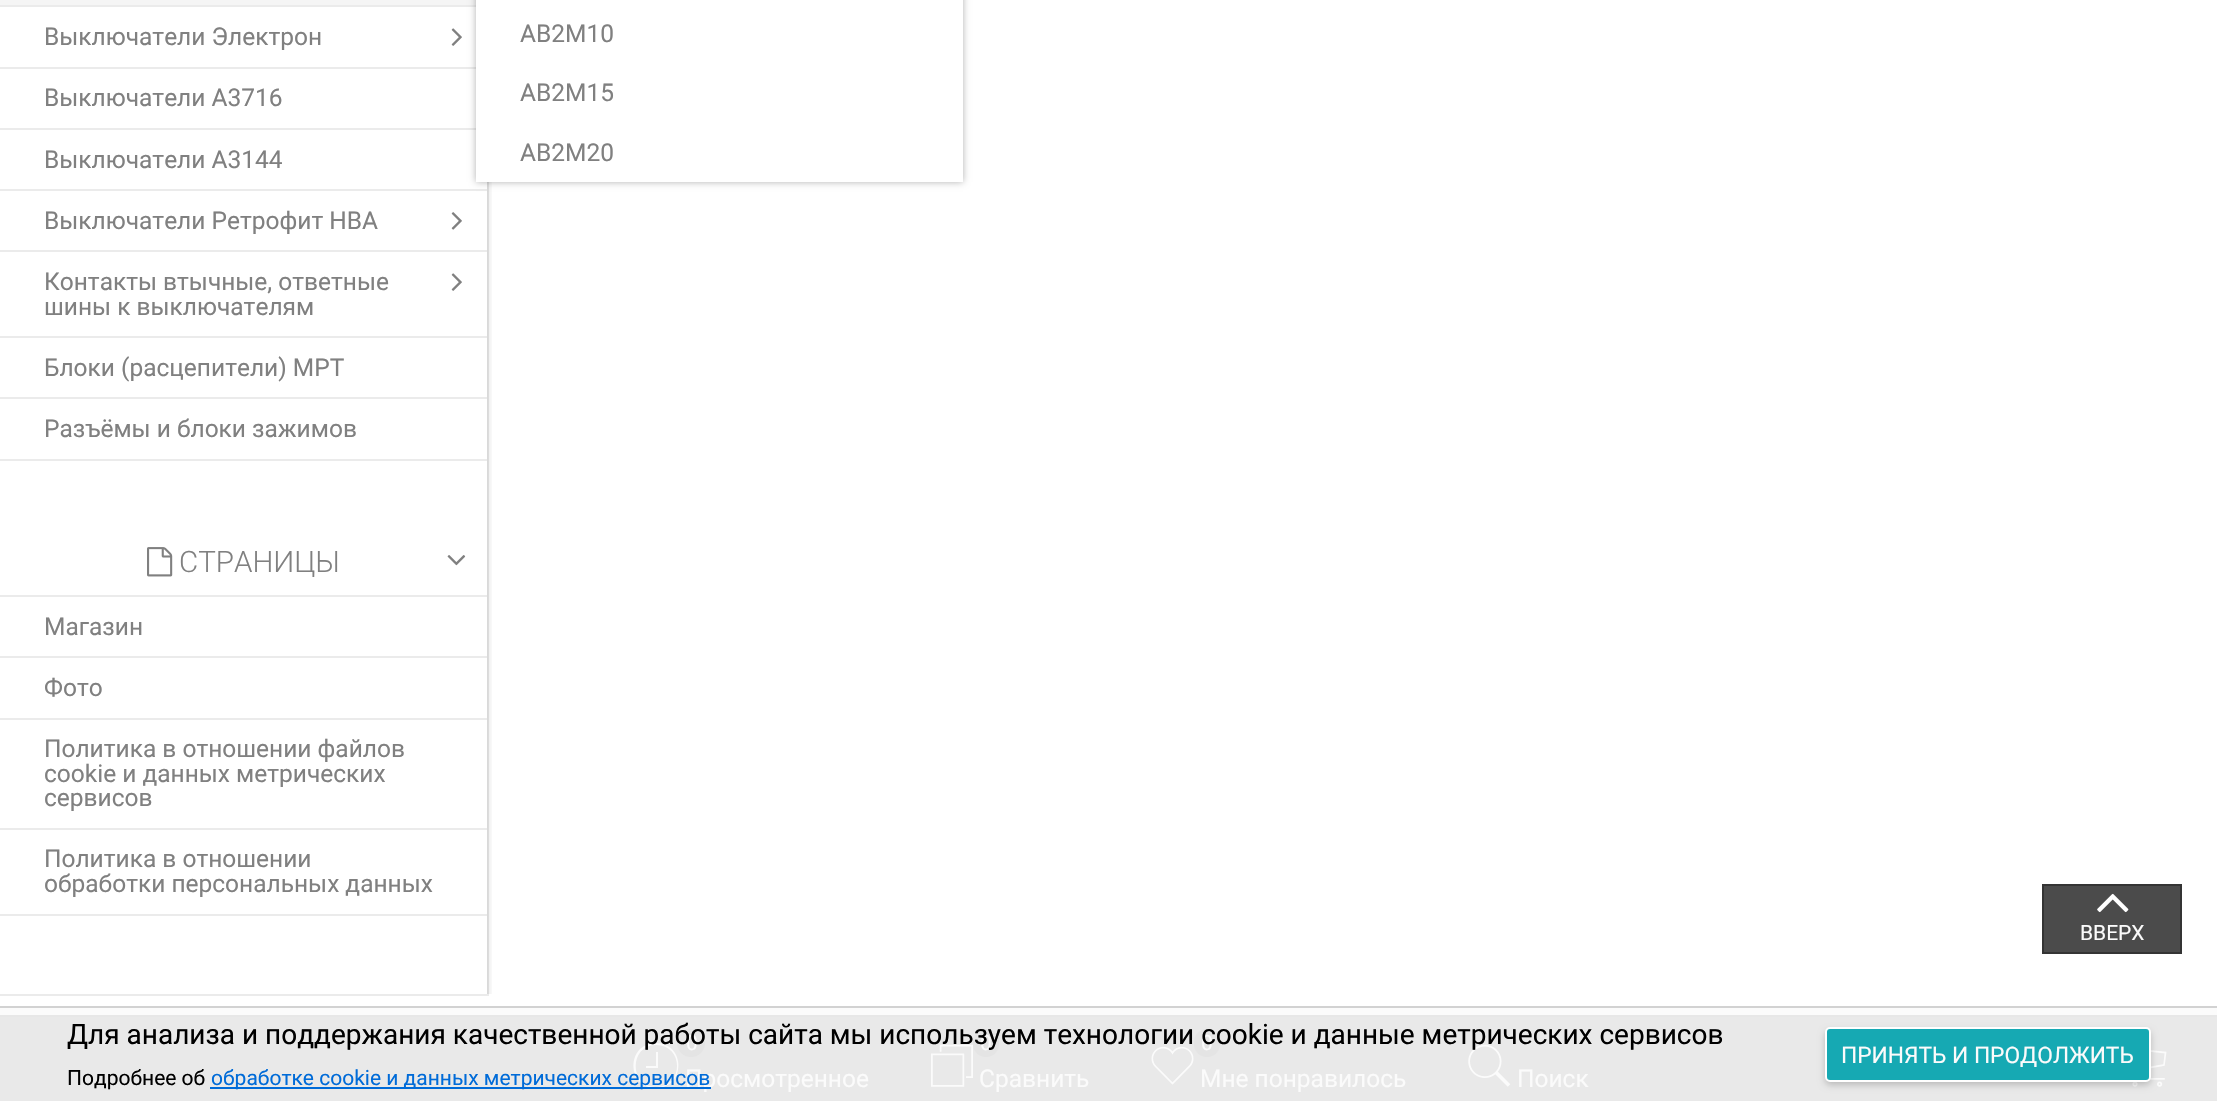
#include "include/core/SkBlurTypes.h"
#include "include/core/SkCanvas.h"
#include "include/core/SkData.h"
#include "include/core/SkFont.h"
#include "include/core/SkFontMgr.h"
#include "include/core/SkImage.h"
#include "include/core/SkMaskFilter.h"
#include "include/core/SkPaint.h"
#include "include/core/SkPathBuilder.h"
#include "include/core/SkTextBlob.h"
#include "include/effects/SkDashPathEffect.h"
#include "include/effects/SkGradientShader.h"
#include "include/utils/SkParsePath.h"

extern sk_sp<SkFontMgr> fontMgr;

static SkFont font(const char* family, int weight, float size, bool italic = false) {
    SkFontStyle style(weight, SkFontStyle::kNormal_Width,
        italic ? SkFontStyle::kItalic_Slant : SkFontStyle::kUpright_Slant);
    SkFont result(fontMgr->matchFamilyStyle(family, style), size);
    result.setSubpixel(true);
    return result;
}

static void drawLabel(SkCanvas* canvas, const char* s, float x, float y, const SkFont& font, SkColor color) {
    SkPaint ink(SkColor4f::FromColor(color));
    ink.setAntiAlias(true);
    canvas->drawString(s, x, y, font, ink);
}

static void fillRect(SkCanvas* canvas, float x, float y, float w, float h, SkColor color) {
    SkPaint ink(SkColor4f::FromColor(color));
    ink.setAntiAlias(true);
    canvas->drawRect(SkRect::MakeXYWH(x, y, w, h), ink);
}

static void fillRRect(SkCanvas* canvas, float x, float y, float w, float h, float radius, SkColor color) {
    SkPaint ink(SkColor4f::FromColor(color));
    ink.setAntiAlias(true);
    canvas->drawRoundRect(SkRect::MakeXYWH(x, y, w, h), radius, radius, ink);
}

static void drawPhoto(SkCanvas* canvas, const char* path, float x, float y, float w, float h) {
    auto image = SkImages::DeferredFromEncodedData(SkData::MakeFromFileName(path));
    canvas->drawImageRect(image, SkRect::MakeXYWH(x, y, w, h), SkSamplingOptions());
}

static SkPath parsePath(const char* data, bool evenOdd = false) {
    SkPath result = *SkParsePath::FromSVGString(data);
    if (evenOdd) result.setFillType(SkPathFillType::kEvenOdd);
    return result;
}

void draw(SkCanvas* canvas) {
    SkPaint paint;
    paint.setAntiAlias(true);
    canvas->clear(0xFFFFFFFF);
    fillRect(canvas, 0, 1008, 2217, 7, 0xFFFBFBFB);
    fillRect(canvas, 0, 1017, 2217, 5, 0xFFE9E9E9);
    fillRect(canvas, 487, 182, 2, 814, 0xFFEBEBEB);
    fillRect(canvas, 0, 994, 488, 2, 0xFFEBEBEB);
    fillRect(canvas, 0, 459, 487, 2, 0xFFEBEBEB);
    fillRect(canvas, 0, 5, 476, 2, 0xFFEBEBEB);
    SkFont font1 = font("Roboto", 400, 24.5f);
    drawLabel(canvas, "Выключатели Электрон", 44, 45, font1, 0xFF808080);
    drawPhoto(canvas, "assets/img1.png", 451, 28, 11, 18);
    fillRect(canvas, 0, 0, 476, 5, 0xFFF5F5F5);
    fillRect(canvas, 0, 67, 476, 2, 0xFFEBEBEB);
    fillRect(canvas, 0, 128, 476, 2, 0xFFEBEBEB);
    fillRect(canvas, 0, 189, 487, 2, 0xFFEBEBEB);
    {
        const SkColor colors[] = {0x14000000, 0x00000000};
        const float stops[] = {0, 1};
        const SkPoint ends[] = {{487, 315}, {494, 315}};
        paint.setShader(SkGradientShader::MakeLinear(ends, colors, stops, 2, SkTileMode::kClamp));
        paint.setAlpha(255);
    }
    canvas->drawRect(SkRect::MakeXYWH(487, 182, 5, 812), paint);
    paint.setShader(nullptr);
    paint.setColor(0x4D000000);
    paint.setMaskFilter(SkMaskFilter::MakeBlur(kNormal_SkBlurStyle, 3.5f));
    canvas->drawRect(SkRect::MakeXYWH(476, -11, 487, 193), paint);
    paint.setMaskFilter(nullptr);
    fillRect(canvas, 476, 0, 487, 182, 0xFFFFFFFF);
    drawLabel(canvas, "АВ2М10", 520, 42, font1, 0xFF808080);
    drawLabel(canvas, "АВ2М15", 520, 101, font1, 0xFF808080);
    drawLabel(canvas, "АВ2М20", 520, 161, font1, 0xFF808080);
    drawLabel(canvas, "Выключатели А3716", 44, 106, font1, 0xFF808080);
    drawLabel(canvas, "Выключатели А3144", 44, 168, font1, 0xFF808080);
    drawLabel(canvas, "Выключатели Ретрофит НВА", 44, 229, font1, 0xFF808080);
    drawPhoto(canvas, "assets/img2.png", 451, 212, 11, 18);
    fillRect(canvas, 0, 250, 487, 2, 0xFFEBEBEB);
    drawLabel(canvas, "Контакты втычные, ответные", 44, 290, font1, 0xFF808080);
    drawPhoto(canvas, "assets/img1.png", 451, 273, 11, 18);
    drawLabel(canvas, "шины к выключателям", 44, 315, font1, 0xFF808080);
    fillRect(canvas, 0, 336, 487, 2, 0xFFEBEBEB);
    drawLabel(canvas, "Блоки (расцепители) МРТ", 44, 376, font1, 0xFF808080);
    fillRect(canvas, 0, 397, 487, 2, 0xFFEBEBEB);
    drawLabel(canvas, "Разъёмы и блоки зажимов", 44, 437, font1, 0xFF808080);
    fillRect(canvas, 0, 914, 487, 2, 0xFFEBEBEB);
    drawPhoto(canvas, "assets/img3.png", 147, 547, 26, 30);
    SkFont font2 = font("Roboto", 300, 29.5f);
    drawLabel(canvas, "СТРАНИЦЫ", 179, 572, font2, 0xFF808080);
    drawPhoto(canvas, "assets/img4.png", 447, 555, 19, 11);
    fillRect(canvas, 0, 595, 487, 2, 0xFFEBEBEB);
    drawLabel(canvas, "Магазин", 44, 635, font1, 0xFF808080);
    fillRect(canvas, 0, 656, 487, 2, 0xFFEBEBEB);
    drawLabel(canvas, "Фото", 44, 696, font1, 0xFF808080);
    fillRect(canvas, 0, 718, 487, 2, 0xFFEBEBEB);
    drawLabel(canvas, "Политика в отношении файлов", 44, 757, font1, 0xFF808080);
    drawLabel(canvas, "cookie и данных метрических", 44, 782, font1, 0xFF808080);
    drawLabel(canvas, "сервисов", 44, 806, font1, 0xFF808080);
    fillRect(canvas, 0, 828, 487, 2, 0xFFEBEBEB);
    drawLabel(canvas, "Политика в отношении", 44, 867, font1, 0xFF808080);
    drawLabel(canvas, "обработки персональных данных", 44, 892, font1, 0xFF808080);
    fillRect(canvas, 0, 1015, 2217, 2, 0xFFE7E7E7);
    paint.setColor(0xFF4B4B4B);
    canvas->drawRect(SkRect::MakeXYWH(2043, 885, 138, 68), paint);
    paint.setStroke(true);
    paint.setStrokeWidth(2);
    paint.setColor(0xFF343434);
    canvas->drawRect(SkRect::MakeXYWH(2043, 885, 138, 68), paint);
    drawPhoto(canvas, "assets/img5.png", 2097, 893, 32, 20);
    SkFont font3 = font("Roboto", 400, 21);
    drawLabel(canvas, "ВВЕРХ", 2080, 940, font3, 0xFFFBFBFB);
    fillRect(canvas, 0, 1024, 2217, 77, 0xFFE9E9E9);
    paint.setStroke(false);
    paint.setColor(0xFFFBFBFB);
    canvas->drawPath(parsePath("M656 1043C626 1043 626 1088 656 1088C686 1088 686 1043 656 1043ZM656 1087C629 1087 629 1045 656 1045C684 1045 684 1087 656 1087ZM656 1066H646V1068H658V1052H656Z"), paint);
    paint.setColor(0xFFE4E4E4);
    canvas->drawCircle(691, 1043, 14, paint);
    drawLabel(canvas, "0", 686, 1050, font3, 0xFFFBFBFB);
    drawLabel(canvas, "Просмотренное", 685, 1087, font1, 0xFFFBFBFB);
    drawPhoto(canvas, "assets/img6.png", 931, 1044, 42, 43);
    fillRRect(canvas, 973, 1029, 26, 28, 13, 0xFFE4E4E4);
    drawLabel(canvas, "0", 980, 1050, font3, 0xFFFBFBFB);
    drawLabel(canvas, "Сравнить", 979, 1087, font1, 0xFFFBFBFB);
    fillRRect(canvas, 1194, 1029, 26, 28, 13, 0xFFE4E4E4);
    drawLabel(canvas, "0", 1201, 1050, font3, 0xFFFBFBFB);
    drawPhoto(canvas, "assets/img7.png", 1151, 1046, 43, 39);
    drawLabel(canvas, "Мне понравилось", 1200, 1087, font1, 0xFFFBFBFB);
    drawPhoto(canvas, "assets/img8.png", 1468, 1044, 43, 43);
    drawLabel(canvas, "Поиск", 1517, 1087, font1, 0xFFFBFBFB);
    drawPhoto(canvas, "assets/img9.png", 2132, 1050, 35, 37);
    fillRect(canvas, 1433, 1022, 2, 2, 0xFFE7E7E7);
    fillRect(canvas, 1615, 1022, 2, 2, 0xFFE7E7E7);
    fillRect(canvas, 896, 1022, 2, 2, 0xFFE7E7E7);
    fillRect(canvas, 0, 1022, 2217, 2, 0xFFE9E9E9);
    fillRect(canvas, 0, 1006, 2217, 2, 0xFFD2D2D2);
    SkFont font4 = font("Roboto", 400, 28);
    drawLabel(canvas, "Для анализа и поддержания качественной работы сайта мы используем технологии cookie и данные метрических сервисов", 67, 1044, font4, 0xFF000000);
    drawLabel(canvas, "Подробнее об", 67, 1085, font3, 0xFF000000);
    fillRect(canvas, 210, 1087, 501, 2, 0xFF006BD8);
    drawLabel(canvas, "обработке cookie и данных метрических сервисов", 211, 1085, font3, 0xFF006BD8);
    paint.setColor(0x33000000);
    paint.setMaskFilter(SkMaskFilter::MakeBlur(kNormal_SkBlurStyle, 3.5f));
    canvas->drawRoundRect(SkRect::MakeXYWH(1825, 1031, 326, 54), 5, 5, paint);
    paint.setMaskFilter(nullptr);
    paint.setColor(0xFF16A9B3);
    canvas->drawRoundRect(SkRect::MakeXYWH(1826, 1028, 324, 53), 4, 4, paint);
    paint.setStroke(true);
    paint.setColor(0xFFFFFFFF);
    canvas->drawRoundRect(SkRect::MakeXYWH(1826, 1028, 324, 53), 4, 4, paint);
    SkFont font5 = font("Roboto", 400, 22.75f);
    drawLabel(canvas, "ПРИНЯТЬ И ПРОДОЛЖИТЬ", 1841, 1063, font5, 0xFFFBFBFB);
}
